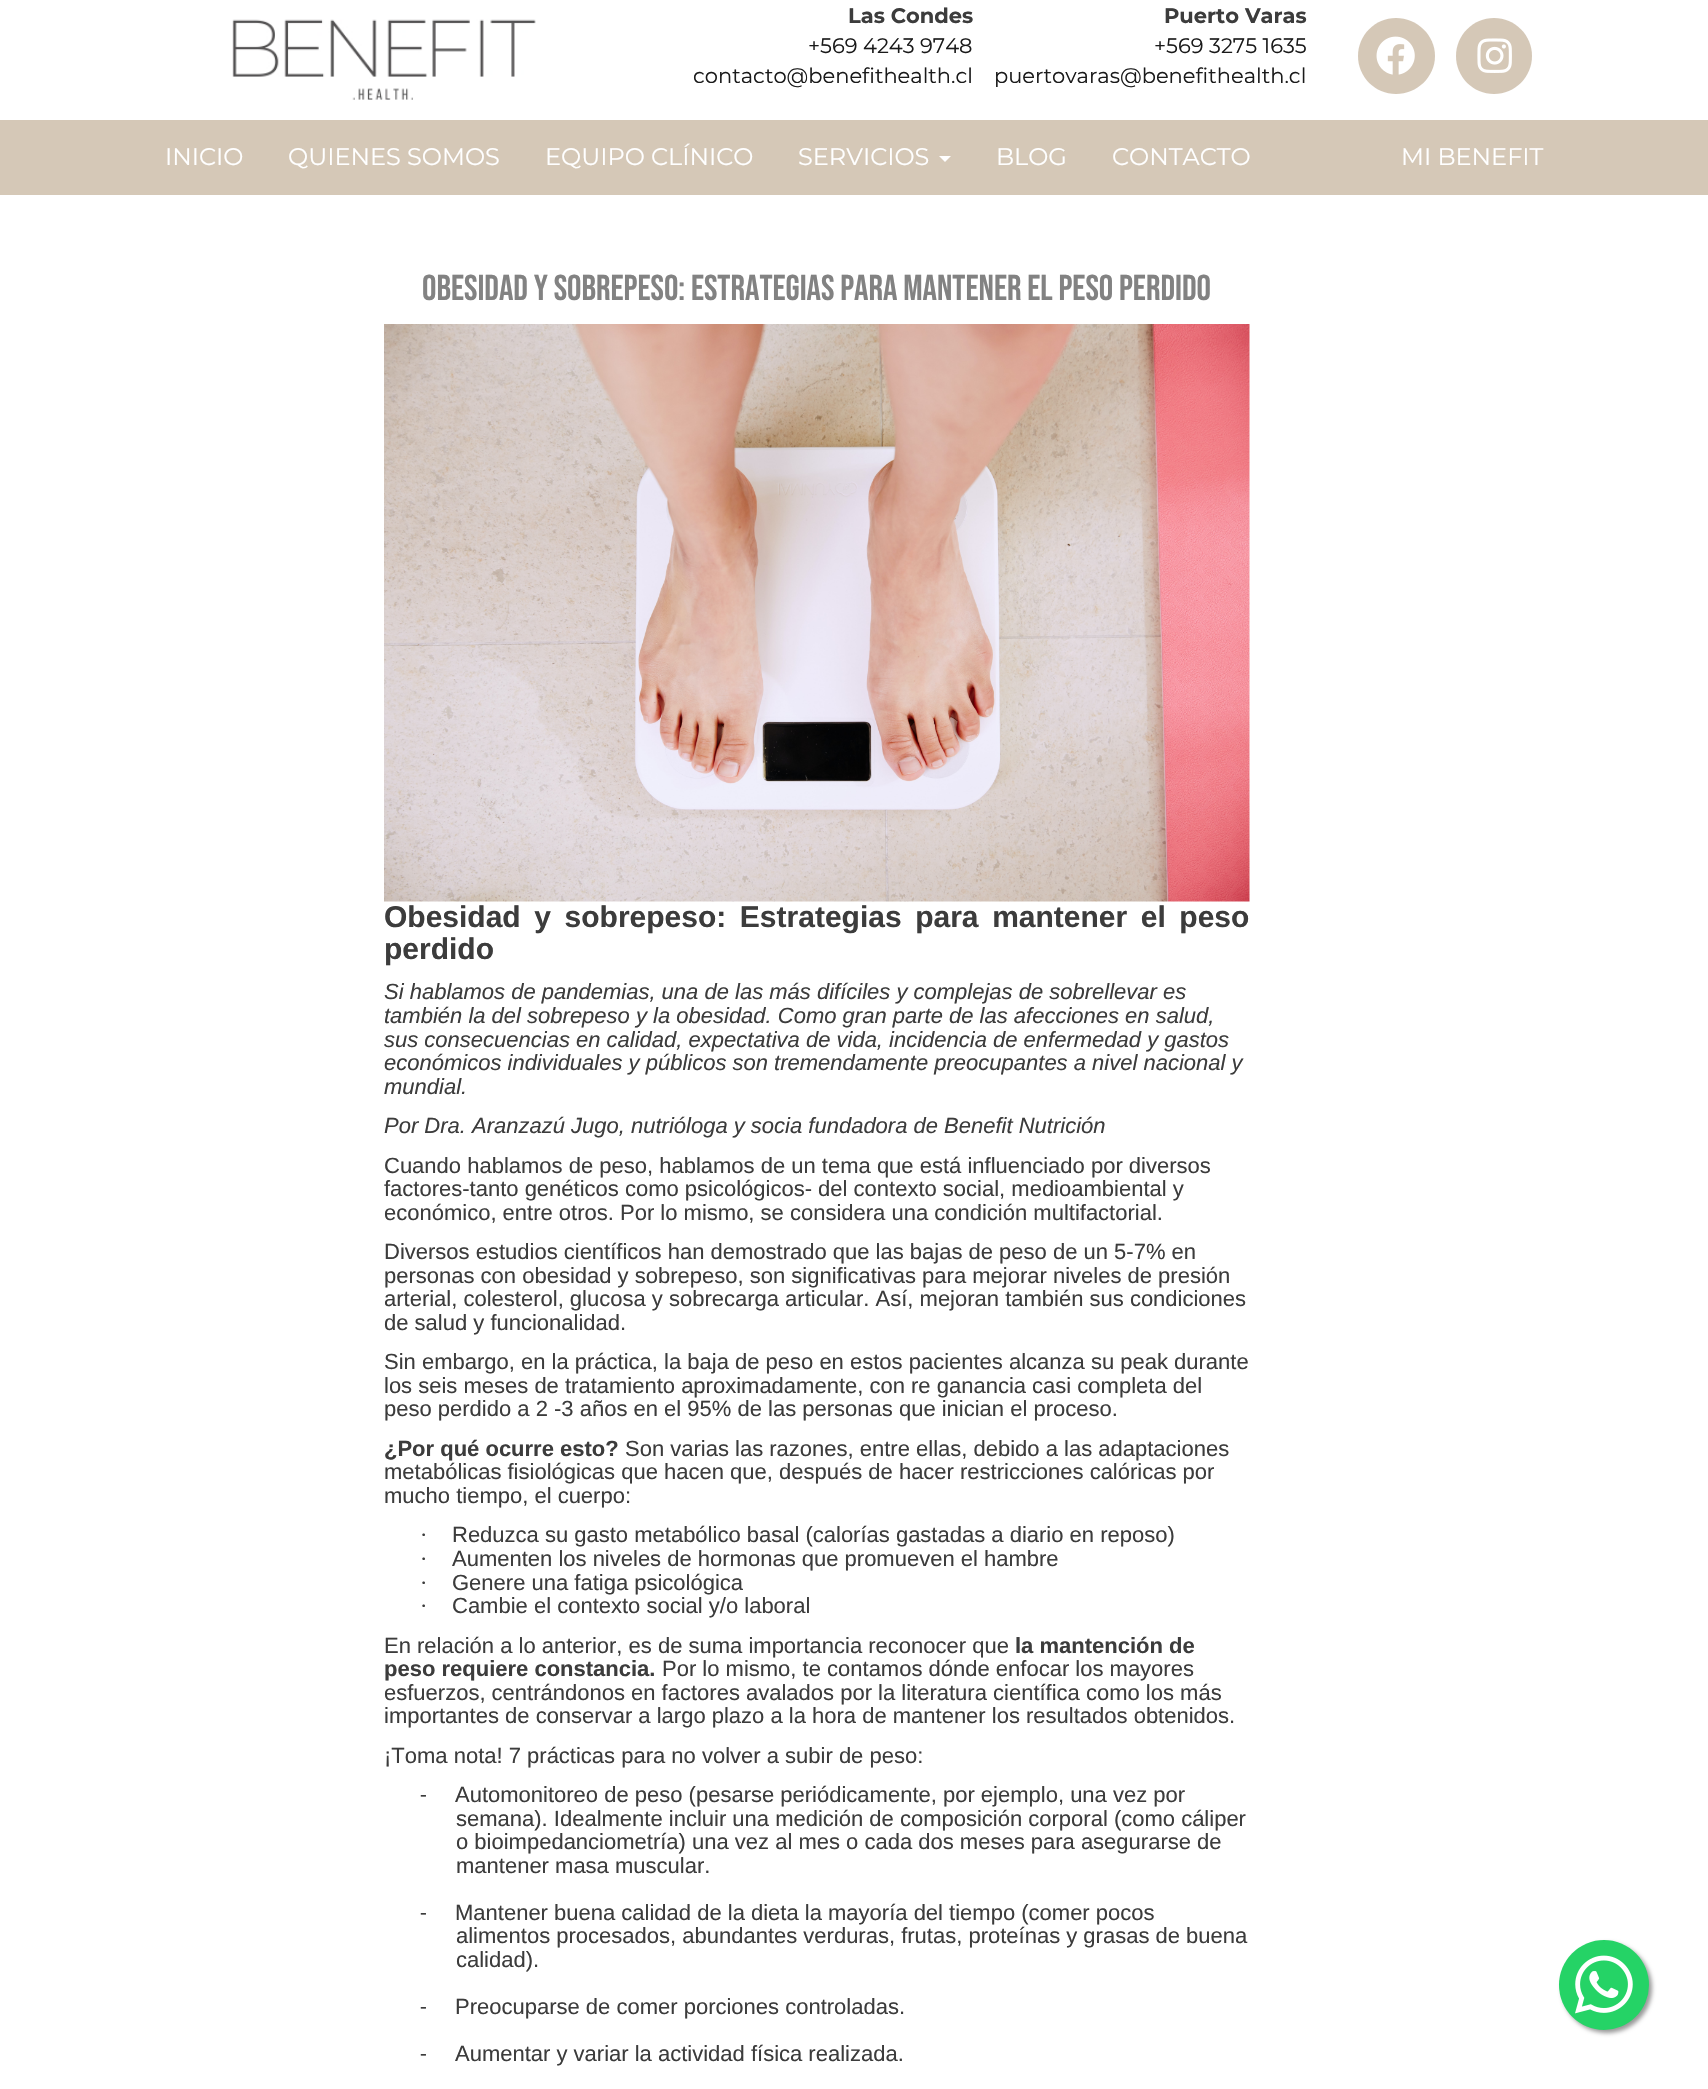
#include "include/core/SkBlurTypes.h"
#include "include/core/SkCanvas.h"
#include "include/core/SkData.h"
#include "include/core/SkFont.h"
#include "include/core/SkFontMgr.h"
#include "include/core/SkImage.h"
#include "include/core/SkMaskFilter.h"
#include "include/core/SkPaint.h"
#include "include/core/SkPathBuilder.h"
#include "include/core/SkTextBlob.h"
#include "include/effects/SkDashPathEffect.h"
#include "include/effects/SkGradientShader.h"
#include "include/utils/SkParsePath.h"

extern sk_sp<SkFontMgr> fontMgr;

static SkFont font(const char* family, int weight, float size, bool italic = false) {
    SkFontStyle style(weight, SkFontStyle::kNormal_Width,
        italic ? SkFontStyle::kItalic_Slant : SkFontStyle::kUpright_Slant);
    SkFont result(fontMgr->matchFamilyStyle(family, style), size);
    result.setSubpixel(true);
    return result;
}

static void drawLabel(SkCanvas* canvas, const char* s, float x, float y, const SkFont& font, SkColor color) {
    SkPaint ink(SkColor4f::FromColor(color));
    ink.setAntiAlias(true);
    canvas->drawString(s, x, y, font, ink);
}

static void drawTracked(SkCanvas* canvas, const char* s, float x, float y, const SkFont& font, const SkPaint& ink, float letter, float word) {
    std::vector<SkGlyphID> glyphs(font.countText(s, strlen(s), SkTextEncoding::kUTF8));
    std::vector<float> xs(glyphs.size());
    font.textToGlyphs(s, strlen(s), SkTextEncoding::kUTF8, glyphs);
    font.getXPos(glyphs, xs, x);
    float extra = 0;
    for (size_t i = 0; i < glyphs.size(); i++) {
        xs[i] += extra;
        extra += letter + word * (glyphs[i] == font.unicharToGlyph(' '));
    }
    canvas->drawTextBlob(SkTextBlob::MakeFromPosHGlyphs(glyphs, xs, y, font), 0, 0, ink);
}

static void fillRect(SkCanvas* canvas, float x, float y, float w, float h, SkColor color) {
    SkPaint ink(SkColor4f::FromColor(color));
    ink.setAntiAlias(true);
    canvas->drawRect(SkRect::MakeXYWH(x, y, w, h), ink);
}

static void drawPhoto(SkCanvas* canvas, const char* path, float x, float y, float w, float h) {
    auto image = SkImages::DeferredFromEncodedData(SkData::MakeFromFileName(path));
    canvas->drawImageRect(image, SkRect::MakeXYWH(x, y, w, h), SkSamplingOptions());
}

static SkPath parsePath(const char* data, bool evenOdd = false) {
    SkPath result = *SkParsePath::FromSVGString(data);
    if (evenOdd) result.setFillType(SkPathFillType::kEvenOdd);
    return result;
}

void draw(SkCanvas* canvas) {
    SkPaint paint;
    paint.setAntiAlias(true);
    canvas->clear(0xFFFFFFFF);
    drawPhoto(canvas, "assets/img1.png", 232, 19, 304, 81);
    SkFont font1 = font("Montserrat", 700, 21);
    drawLabel(canvas, "Las Condes", 848, 23, font1, 0xFF3C3C3C);
    SkFont font2 = font("Montserrat", 400, 21);
    drawLabel(canvas, "+569 4243 9748", 808, 53, font2, 0xFF1A1A1A);
    drawLabel(canvas, "contacto@benefithealth.cl", 693, 83, font2, 0xFF1A1A1A);
    drawLabel(canvas, "Puerto Varas", 1164, 23, font1, 0xFF3C3C3C);
    drawLabel(canvas, "+569 3275 1635", 1154, 53, font2, 0xFF1A1A1A);
    drawLabel(canvas, "puertovaras@benefithealth.cl", 994, 83, font2, 0xFF1A1A1A);
    paint.setColor(0xFFD5C8B7);
    canvas->drawPath(parsePath("M1396 18C1375 18 1358 35 1358 56C1358 77 1375 94 1396 94C1417 94 1435 77 1435 56C1435 35 1417 18 1396 18Z"), paint);
    drawPhoto(canvas, "assets/img2.png", 1376, 36, 39, 39);
    canvas->drawPath(parsePath("M1494 18C1473 18 1456 35 1456 56C1456 77 1473 94 1494 94C1515 94 1532 77 1532 56C1532 35 1515 18 1494 18Z"), paint);
    drawPhoto(canvas, "assets/img3.png", 1477, 38, 35, 35);
    fillRect(canvas, 0, 120, 1708, 75, 0xFFD5C8B7);
    SkFont font3 = font("Montserrat", 400, 24);
    drawLabel(canvas, "INICIO", 165, 165, font3, 0xFFFFFFFF);
    drawLabel(canvas, "QUIENES SOMOS", 288, 165, font3, 0xFFFFFFFF);
    drawLabel(canvas, "EQUIPO CLÍNICO", 545, 165, font3, 0xFFFFFFFF);
    drawLabel(canvas, "SERVICIOS", 798, 165, font3, 0xFFFFFFFF);
    paint.setColor(0xFFFFFFFF);
    canvas->drawPath(parsePath("M939 156H951L945 162Z"), paint);
    drawLabel(canvas, "BLOG", 996, 165, font3, 0xFFFFFFFF);
    drawLabel(canvas, "CONTACTO", 1112, 165, font3, 0xFFFFFFFF);
    drawLabel(canvas, "MI BENEFIT", 1401, 165, font3, 0xFFFFFFFF);
    SkFont font4 = font("Bebas Neue", 400, 36);
    drawLabel(canvas, "OBESIDAD Y SOBREPESO: ESTRATEGIAS PARA MANTENER EL PESO PERDIDO", 422, 300, font4, 0xFF828282);
    drawPhoto(canvas, "assets/img4.png", 384, 324, 866, 578);
    SkFont font5 = font("Liberation Sans", 700, 30);
    paint.setColor(0xFF3C3C3C);
    drawTracked(canvas, "Obesidad y sobrepeso: Estrategias para mantener el peso", 384, 927, font5, paint, 0, 5.25f);
    drawLabel(canvas, "perdido", 384, 959, font5, 0xFF3C3C3C);
    SkFont font6 = font("Liberation Sans", 400, 22, true);
    drawLabel(canvas, "Si hablamos de pandemias, una de las más difíciles y complejas de sobrellevar es", 384, 999, font6, 0xFF3C3C3C);
    drawLabel(canvas, "también la del sobrepeso y la obesidad. Como gran parte de las afecciones en salud,", 384, 1023, font6, 0xFF3C3C3C);
    drawLabel(canvas, "sus consecuencias en calidad, expectativa de vida, incidencia de enfermedad y gastos", 384, 1047, font6, 0xFF3C3C3C);
    drawLabel(canvas, "económicos individuales y públicos son tremendamente preocupantes a nivel nacional y", 384, 1070, font6, 0xFF3C3C3C);
    drawLabel(canvas, "mundial.", 384, 1094, font6, 0xFF3C3C3C);
    drawLabel(canvas, "Por Dra. Aranzazú Jugo, nutrióloga y socia fundadora de Benefit Nutrición", 384, 1133, font6, 0xFF3C3C3C);
    SkFont font7 = font("Liberation Sans", 400, 22);
    drawLabel(canvas, "Cuando hablamos de peso, hablamos de un tema que está influenciado por diversos", 384, 1173, font7, 0xFF3C3C3C);
    drawLabel(canvas, "factores-tanto genéticos como psicológicos- del contexto social, medioambiental y", 384, 1196, font7, 0xFF3C3C3C);
    drawLabel(canvas, "económico, entre otros. Por lo mismo, se considera una condición multifactorial.", 384, 1220, font7, 0xFF3C3C3C);
    drawLabel(canvas, "Diversos estudios científicos han demostrado que las bajas de peso de un 5-7% en", 384, 1259, font7, 0xFF3C3C3C);
    drawLabel(canvas, "personas con obesidad y sobrepeso, son significativas para mejorar niveles de presión", 384, 1283, font7, 0xFF3C3C3C);
    drawLabel(canvas, "arterial, colesterol, glucosa y sobrecarga articular. Así, mejoran también sus condiciones", 384, 1306, font7, 0xFF3C3C3C);
    drawLabel(canvas, "de salud y funcionalidad.", 384, 1330, font7, 0xFF3C3C3C);
    drawLabel(canvas, "Sin embargo, en la práctica, la baja de peso en estos pacientes alcanza su peak durante", 384, 1369, font7, 0xFF3C3C3C);
    drawLabel(canvas, "los seis meses de tratamiento aproximadamente, con re ganancia casi completa del", 384, 1393, font7, 0xFF3C3C3C);
    drawLabel(canvas, "peso perdido a 2 -3 años en el 95% de las personas que inician el proceso.", 384, 1416, font7, 0xFF3C3C3C);
    SkFont font8 = font("Liberation Sans", 700, 22);
    drawLabel(canvas, "¿Por qué ocurre esto?", 384, 1456, font8, 0xFF3C3C3C);
    drawLabel(canvas, "Son varias las razones, entre ellas, debido a las adaptaciones", 625, 1456, font7, 0xFF3C3C3C);
    drawLabel(canvas, "metabólicas fisiológicas que hacen que, después de hacer restricciones calóricas por", 384, 1479, font7, 0xFF3C3C3C);
    drawLabel(canvas, "mucho tiempo, el cuerpo:", 384, 1503, font7, 0xFF3C3C3C);
    SkFont font9 = font("Liberation Serif", 400, 22);
    drawLabel(canvas, "·", 420, 1542, font9, 0xFF3C3C3C);
    drawLabel(canvas, "Reduzca su gasto metabólico basal (calorías gastadas a diario en reposo)", 452, 1542, font7, 0xFF3C3C3C);
    drawLabel(canvas, "·", 420, 1566, font9, 0xFF3C3C3C);
    drawLabel(canvas, "Aumenten los niveles de hormonas que promueven el hambre", 452, 1566, font7, 0xFF3C3C3C);
    drawLabel(canvas, "·", 420, 1590, font9, 0xFF3C3C3C);
    drawLabel(canvas, "Genere una fatiga psicológica", 452, 1590, font7, 0xFF3C3C3C);
    drawLabel(canvas, "·", 420, 1613, font9, 0xFF3C3C3C);
    drawLabel(canvas, "Cambie el contexto social y/o laboral", 452, 1613, font7, 0xFF3C3C3C);
    drawLabel(canvas, "En relación a lo anterior, es de suma importancia reconocer que", 384, 1653, font7, 0xFF3C3C3C);
    drawLabel(canvas, "la mantención de", 1015, 1653, font8, 0xFF3C3C3C);
    drawLabel(canvas, "peso requiere constancia.", 384, 1676, font8, 0xFF3C3C3C);
    drawLabel(canvas, "Por lo mismo, te contamos dónde enfocar los mayores", 662, 1676, font7, 0xFF3C3C3C);
    drawLabel(canvas, "esfuerzos, centrándonos en factores avalados por la literatura científica como los más", 384, 1700, font7, 0xFF3C3C3C);
    drawLabel(canvas, "importantes de conservar a largo plazo a la hora de mantener los resultados obtenidos.", 384, 1723, font7, 0xFF3C3C3C);
    drawLabel(canvas, "¡Toma nota! 7 prácticas para no volver a subir de peso:", 384, 1763, font7, 0xFF3C3C3C);
    SkFont font10 = font("Carlito", 400, 22);
    drawLabel(canvas, "-", 420, 1802, font10, 0xFF3C3C3C);
    drawLabel(canvas, "Automonitoreo de peso (pesarse periódicamente, por ejemplo, una vez por", 455, 1802, font7, 0xFF3C3C3C);
    drawLabel(canvas, "semana). Idealmente incluir una medición de composición corporal (como cáliper", 456, 1826, font7, 0xFF3C3C3C);
    drawLabel(canvas, "o bioimpedanciometría) una vez al mes o cada dos meses para asegurarse de", 456, 1849, font7, 0xFF3C3C3C);
    drawLabel(canvas, "mantener masa muscular.", 456, 1873, font7, 0xFF3C3C3C);
    drawLabel(canvas, "-", 420, 1920, font10, 0xFF3C3C3C);
    drawLabel(canvas, "Mantener buena calidad de la dieta la mayoría del tiempo (comer pocos", 455, 1920, font7, 0xFF3C3C3C);
    drawLabel(canvas, "alimentos procesados, abundantes verduras, frutas, proteínas y grasas de buena", 456, 1943, font7, 0xFF3C3C3C);
    drawLabel(canvas, "calidad).", 456, 1967, font7, 0xFF3C3C3C);
    drawLabel(canvas, "-", 420, 2014, font10, 0xFF3C3C3C);
    drawLabel(canvas, "Preocuparse de comer porciones controladas.", 455, 2014, font7, 0xFF3C3C3C);
    drawLabel(canvas, "-", 420, 2061, font10, 0xFF3C3C3C);
    drawLabel(canvas, "Aumentar y variar la actividad física realizada.", 455, 2061, font7, 0xFF3C3C3C);
    paint.setColor(0xFF999999);
    paint.setMaskFilter(SkMaskFilter::MakeBlur(kNormal_SkBlurStyle, 2));
    canvas->drawRoundRect(SkRect::MakeXYWH(1562, 1943, 90, 90), 45, 45, paint);
    paint.setMaskFilter(nullptr);
    paint.setColor(0xFF25D366);
    canvas->drawCircle(1604, 1985, 45, paint);
    drawPhoto(canvas, "assets/img5.png", 1575, 1955, 58, 59);
}
